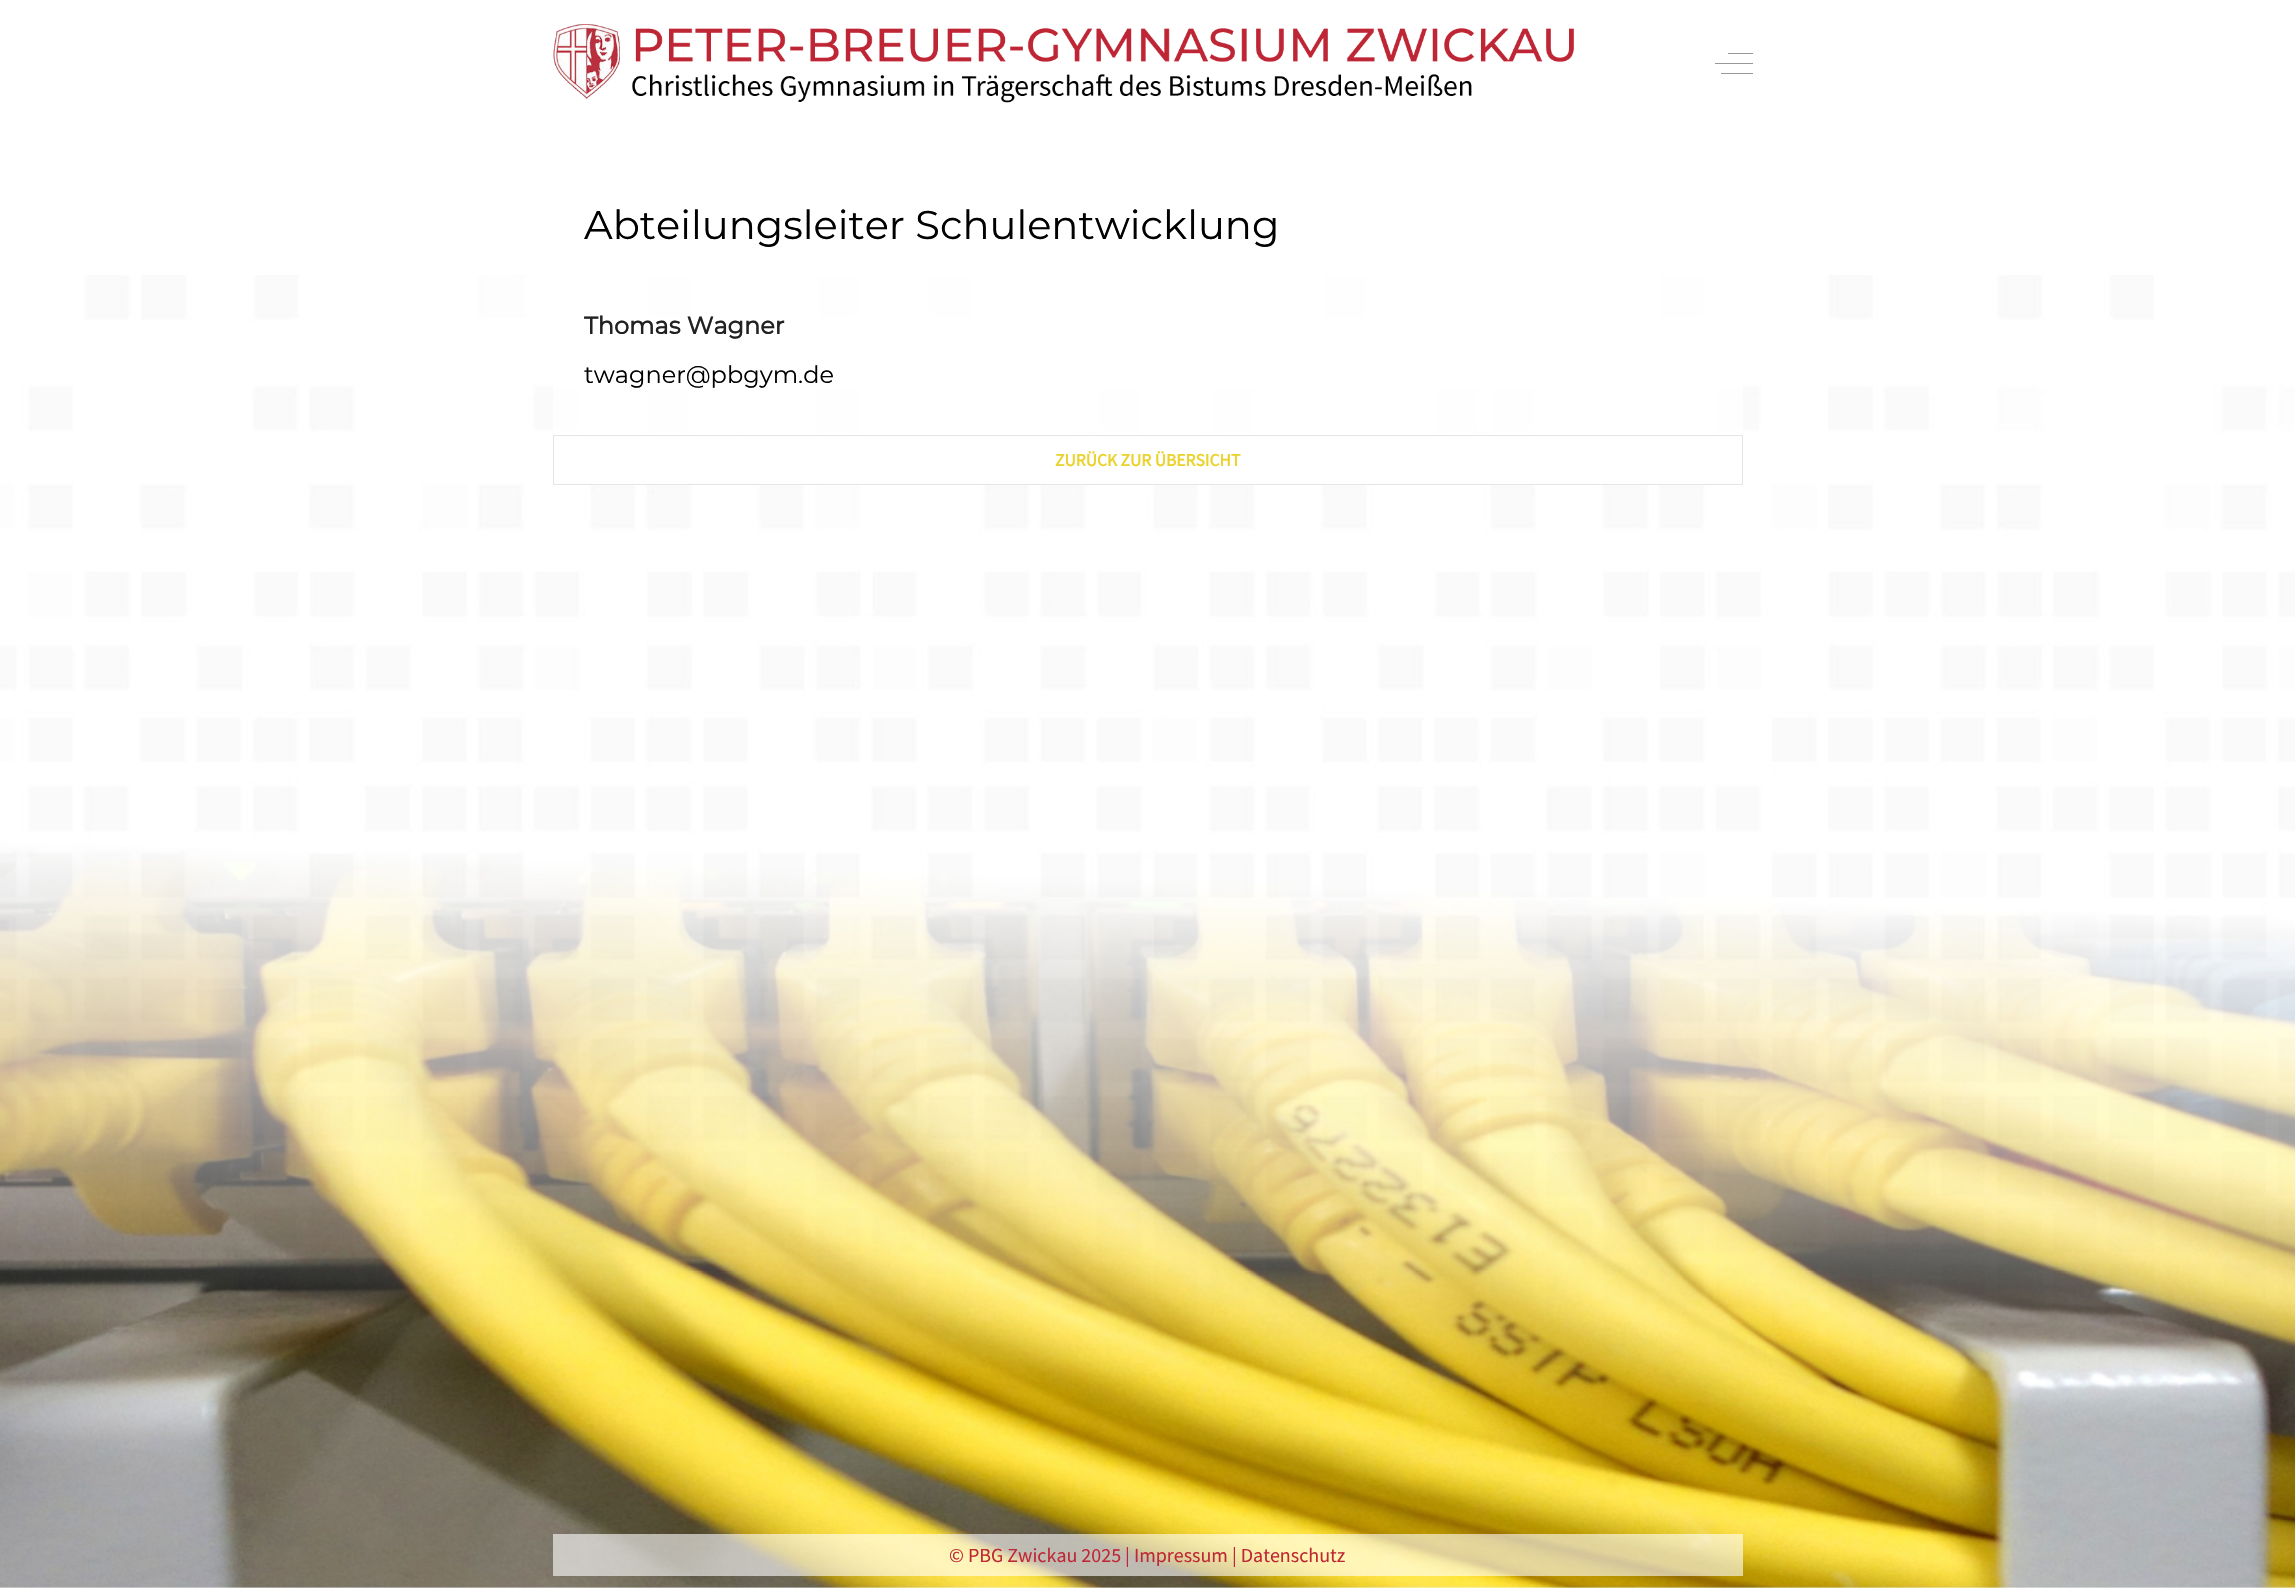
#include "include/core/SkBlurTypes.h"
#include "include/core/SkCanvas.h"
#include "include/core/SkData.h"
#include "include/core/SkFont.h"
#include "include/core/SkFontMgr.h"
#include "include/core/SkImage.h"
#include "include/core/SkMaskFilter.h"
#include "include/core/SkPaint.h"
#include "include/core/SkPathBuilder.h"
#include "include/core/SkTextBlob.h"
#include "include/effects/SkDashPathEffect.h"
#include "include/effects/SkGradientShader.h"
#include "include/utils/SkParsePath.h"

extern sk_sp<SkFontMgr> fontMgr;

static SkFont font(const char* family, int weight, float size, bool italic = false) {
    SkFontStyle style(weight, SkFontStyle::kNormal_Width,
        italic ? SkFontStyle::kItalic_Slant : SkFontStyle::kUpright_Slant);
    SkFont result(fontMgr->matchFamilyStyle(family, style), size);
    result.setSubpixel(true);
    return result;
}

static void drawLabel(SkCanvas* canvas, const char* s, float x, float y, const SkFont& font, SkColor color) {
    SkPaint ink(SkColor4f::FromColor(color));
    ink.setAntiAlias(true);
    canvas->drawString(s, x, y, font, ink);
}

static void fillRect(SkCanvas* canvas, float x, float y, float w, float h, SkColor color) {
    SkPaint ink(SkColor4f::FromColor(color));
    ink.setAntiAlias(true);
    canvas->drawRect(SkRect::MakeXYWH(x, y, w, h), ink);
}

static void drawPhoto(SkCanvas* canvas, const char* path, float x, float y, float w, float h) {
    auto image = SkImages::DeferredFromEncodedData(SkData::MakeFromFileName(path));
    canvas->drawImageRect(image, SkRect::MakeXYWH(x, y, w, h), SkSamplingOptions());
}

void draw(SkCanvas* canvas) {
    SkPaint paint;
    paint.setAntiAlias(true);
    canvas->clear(0xFFFFFFFF);
    drawPhoto(canvas, "assets/img1.png", 0, 275, 2295, 1313);
    drawPhoto(canvas, "assets/img2.png", 553, 24, 1021, 79);
    fillRect(canvas, 1715, 63, 38, 1, 0xFF999999);
    fillRect(canvas, 1728, 53, 25, 1, 0xFF999999);
    fillRect(canvas, 1721, 73, 32, 1, 0xFF999999);
    fillRect(canvas, 553, 275, 1190, 156, 0xCCFFFFFF);
    SkFont font1 = font("Montserrat", 400, 40);
    drawLabel(canvas, "Abteilungsleiter Schulentwicklung", 584, 239, font1, 0xFF000000);
    SkFont font2 = font("Montserrat", 700, 24);
    drawLabel(canvas, "Thomas Wagner", 584, 334, font2, 0xFF222222);
    SkFont font3 = font("Montserrat", 400, 24);
    drawLabel(canvas, "twagner@pbgym.de", 584, 383, font3, 0xFF000000);
    fillRect(canvas, 1365, 483, 127, 1, 0xFFFFFFFF);
    paint.setStroke(true);
    paint.setStrokeWidth(1);
    paint.setColor(0xFFE5E5E5);
    canvas->drawRect(SkRect::MakeXYWH(553.5f, 435.5f, 1189, 49), paint);
    SkFont font4 = font("Source Sans Pro", 700, 17.5f);
    drawLabel(canvas, "ZURÜCK ZUR ÜBERSICHT", 1055, 466, font4, 0xFFEAD32F);
    fillRect(canvas, 553, 1534, 1190, 42, 0x99FFFFFF);
    SkFont font5 = font("Source Sans Pro", 400, 20);
    drawLabel(canvas, "© PBG Zwickau 2025 | Impressum | Datenschutz", 949, 1562, font5, 0xFFBF2735);
}
